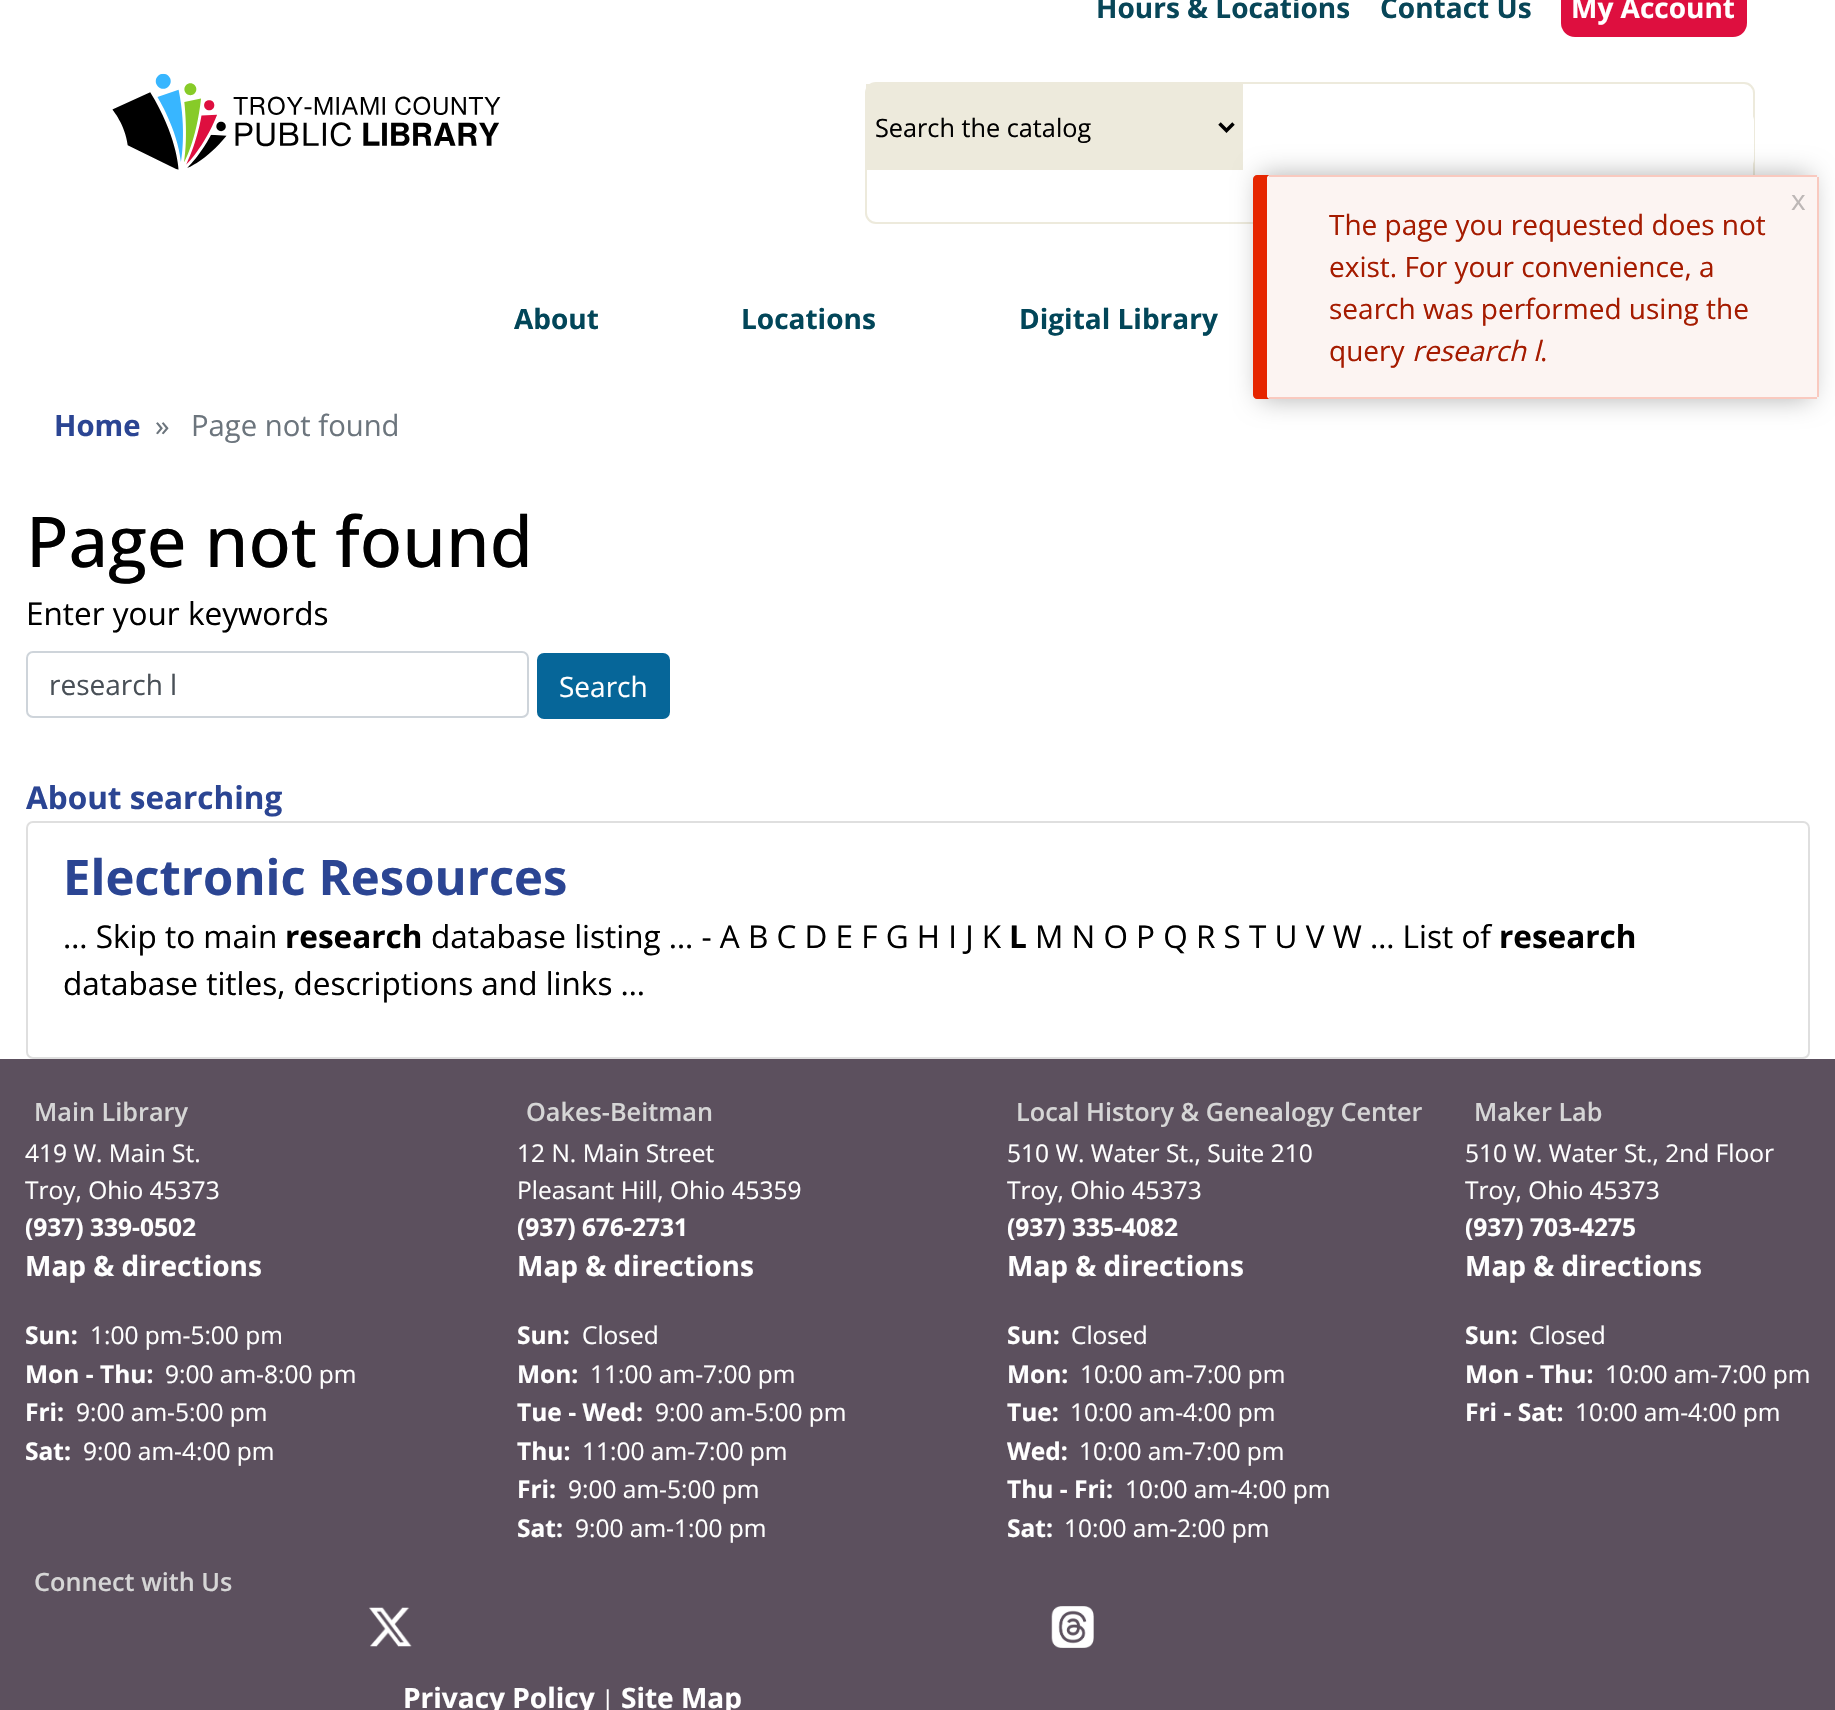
#include "include/core/SkBlurTypes.h"
#include "include/core/SkCanvas.h"
#include "include/core/SkData.h"
#include "include/core/SkFont.h"
#include "include/core/SkFontMgr.h"
#include "include/core/SkImage.h"
#include "include/core/SkMaskFilter.h"
#include "include/core/SkPaint.h"
#include "include/core/SkPathBuilder.h"
#include "include/core/SkTextBlob.h"
#include "include/effects/SkDashPathEffect.h"
#include "include/effects/SkGradientShader.h"
#include "include/utils/SkParsePath.h"

extern sk_sp<SkFontMgr> fontMgr;

static SkFont font(const char* family, int weight, float size, bool italic = false) {
    SkFontStyle style(weight, SkFontStyle::kNormal_Width,
        italic ? SkFontStyle::kItalic_Slant : SkFontStyle::kUpright_Slant);
    SkFont result(fontMgr->matchFamilyStyle(family, style), size);
    result.setSubpixel(true);
    return result;
}

static void drawLabel(SkCanvas* canvas, const char* s, float x, float y, const SkFont& font, SkColor color) {
    SkPaint ink(SkColor4f::FromColor(color));
    ink.setAntiAlias(true);
    canvas->drawString(s, x, y, font, ink);
}

static void fillRect(SkCanvas* canvas, float x, float y, float w, float h, SkColor color) {
    SkPaint ink(SkColor4f::FromColor(color));
    ink.setAntiAlias(true);
    canvas->drawRect(SkRect::MakeXYWH(x, y, w, h), ink);
}

static void fillRRect(SkCanvas* canvas, float x, float y, float w, float h, float radius, SkColor color) {
    SkPaint ink(SkColor4f::FromColor(color));
    ink.setAntiAlias(true);
    canvas->drawRoundRect(SkRect::MakeXYWH(x, y, w, h), radius, radius, ink);
}

static void drawPhoto(SkCanvas* canvas, const char* path, float x, float y, float w, float h) {
    auto image = SkImages::DeferredFromEncodedData(SkData::MakeFromFileName(path));
    canvas->drawImageRect(image, SkRect::MakeXYWH(x, y, w, h), SkSamplingOptions());
}

static SkPath parsePath(const char* data, bool evenOdd = false) {
    SkPath result = *SkParsePath::FromSVGString(data);
    if (evenOdd) result.setFillType(SkPathFillType::kEvenOdd);
    return result;
}

void draw(SkCanvas* canvas) {
    SkPaint paint;
    paint.setAntiAlias(true);
    canvas->clear(0xFFFFFFFF);
    SkFont font1 = font("Open Sans", 700, 28);
    drawLabel(canvas, "Hours & Locations", 1096, 18, font1, 0xFF084658);
    drawLabel(canvas, "Contact Us", 1380, 18, font1, 0xFF084658);
    fillRRect(canvas, 1561, -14, 186, 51, 14, 0xFFDE0F3F);
    drawLabel(canvas, "My Account", 1571, 18, font1, 0xFFFFFFFF);
    drawPhoto(canvas, "assets/img1.png", 112, 73, 389, 97);
    paint.setStroke(true);
    paint.setStrokeWidth(2);
    paint.setColor(0xFFEDEADC);
    canvas->drawRoundRect(SkRect::MakeXYWH(866, 83, 888, 140), 10, 10, paint);
    fillRect(canvas, 866, 84, 377, 86, 0xFFEDEADC);
    paint.setStrokeWidth(3.5f);
    paint.setColor(0xFF000000);
    canvas->drawPath(parsePath("M1219.5 123.5L1226.5 130.5L1233.5 123.5"), paint);
    SkFont font2 = font("Open Sans", 400, 25.25f);
    drawLabel(canvas, "Search the catalog", 875, 137, font2, 0xFF000000);
    fillRRect(canvas, 1243, 110, 511, 60, 11, 0xFFFFFFFF);
    drawLabel(canvas, "About", 514, 329, font1, 0xFF024659);
    drawLabel(canvas, "Locations", 741, 329, font1, 0xFF024659);
    drawLabel(canvas, "Digital Library", 1019, 329, font1, 0xFF024659);
    paint.setStroke(false);
    paint.setColor(0x4D000000);
    paint.setMaskFilter(SkMaskFilter::MakeBlur(kNormal_SkBlurStyle, 13));
    canvas->drawRoundRect(SkRect::MakeXYWH(1260, 175, 551, 224), 4, 4, paint);
    paint.setMaskFilter(nullptr);
    paint.setColor(0xFFE62600);
    canvas->drawPath(parsePath("M1257 175C1255 175 1253 177 1253 179V395C1253 397 1255 399 1257 399H1270C1269 399 1267 397 1267 396V178C1267 177 1269 175 1270 175Z"), paint);
    fillRRect(canvas, 1267, 175, 551, 224, 4, 0xFFFCF4F2);
    fillRect(canvas, 1269, 175, 548, 2, 0xFFF9C9BF);
    fillRect(canvas, 1817, 177, 2, 220, 0xFFF9C9BF);
    fillRect(canvas, 1269, 397, 548, 2, 0xFFF9C9BF);
    SkFont font3 = font("Open Sans", 400, 28);
    drawLabel(canvas, "x", 1791, 210, font3, 0xFFBDB7B6);
    drawLabel(canvas, "The page you requested does not", 1329, 235, font3, 0xFFA51B00);
    drawLabel(canvas, "exist. For your convenience, a", 1329, 277, font3, 0xFFA51B00);
    drawLabel(canvas, "search was performed using the", 1329, 319, font3, 0xFFA51B00);
    drawLabel(canvas, "query", 1329, 361, font3, 0xFFA51B00);
    SkFont font4 = font("Open Sans", 400, 28, true);
    drawLabel(canvas, "research l", 1412, 361, font4, 0xFFA51B00);
    drawLabel(canvas, ".", 1540, 361, font3, 0xFFA51B00);
    SkFont font5 = font("Open Sans", 700, 29.25f);
    drawLabel(canvas, "Home", 54, 436, font5, 0xFF2B4593);
    SkFont font6 = font("Open Sans", 400, 29.25f);
    drawLabel(canvas, "»", 155, 436, font6, 0xFF6C757D);
    drawLabel(canvas, "Page not found", 191, 436, font6, 0xFF6C757D);
    SkFont font7 = font("Open Sans", 500, 70);
    drawLabel(canvas, "Page not found", 26, 567, font7, 0xFF000000);
    SkFont font8 = font("Open Sans", 400, 31.5f);
    drawLabel(canvas, "Enter your keywords", 26, 625, font8, 0xFF000000);
    paint.setStroke(true);
    paint.setStrokeWidth(2);
    paint.setColor(0xFFCED4DA);
    canvas->drawRoundRect(SkRect::MakeXYWH(27, 652, 501, 65), 6, 6, paint);
    drawLabel(canvas, "research l", 49, 695, font3, 0xFF495057);
    paint.setStroke(false);
    paint.setColor(0xFF066699);
    canvas->drawRoundRect(SkRect::MakeXYWH(538, 654, 131, 64), 6, 6, paint);
    paint.setStroke(true);
    canvas->drawRoundRect(SkRect::MakeXYWH(538, 654, 131, 64), 6, 6, paint);
    drawLabel(canvas, "Search", 559, 697, font3, 0xFFFFFFFF);
    SkFont font9 = font("Open Sans", 700, 31.5f);
    drawLabel(canvas, "About searching", 26, 809, font9, 0xFF2B4593);
    paint.setColor(0xFFDFDFDF);
    canvas->drawRoundRect(SkRect::MakeXYWH(27, 822, 1782, 236), 6, 6, paint);
    SkFont font10 = font("Open Sans", 700, 49);
    drawLabel(canvas, "Electronic Resources", 63, 895, font10, 0xFF2B4593);
    drawLabel(canvas, "… Skip to main", 63, 948, font8, 0xFF000000);
    drawLabel(canvas, "research", 285, 948, font9, 0xFF000000);
    drawLabel(canvas, "database listing … - A B C D E F G H I J K", 431, 948, font8, 0xFF000000);
    drawLabel(canvas, "L", 1009, 948, font9, 0xFF000000);
    drawLabel(canvas, "M N O P Q R S T U V W … List of", 1035, 948, font8, 0xFF000000);
    drawLabel(canvas, "research", 1499, 948, font9, 0xFF000000);
    drawLabel(canvas, "database titles, descriptions and links …", 63, 995, font8, 0xFF000000);
    fillRect(canvas, 0, 1059, 1835, 651, 0xFF5C505E);
    SkFont font11 = font("Open Sans", 600, 25.25f);
    drawLabel(canvas, "Main Library", 34, 1121, font11, 0xFFD6D6D6);
    SkFont font12 = font("Open Sans", 400, 24.5f);
    drawLabel(canvas, "419 W. Main St.", 25, 1162, font12, 0xFFFFFFFF);
    drawLabel(canvas, "Troy, Ohio 45373", 25, 1199, font12, 0xFFFFFFFF);
    SkFont font13 = font("Open Sans", 700, 24.5f);
    drawLabel(canvas, "(937) 339-0502", 25, 1236, font13, 0xFFFFFFFF);
    drawLabel(canvas, "Map & directions", 25, 1276, font1, 0xFFFFFFFF);
    drawLabel(canvas, "Sun:", 25, 1344, font13, 0xFFFFFFFF);
    drawLabel(canvas, "1:00 pm-5:00 pm", 90, 1344, font12, 0xFFFFFFFF);
    drawLabel(canvas, "Mon - Thu:", 25, 1383, font13, 0xFFFFFFFF);
    drawLabel(canvas, "9:00 am-8:00 pm", 165, 1383, font12, 0xFFFFFFFF);
    drawLabel(canvas, "Fri:", 25, 1421, font13, 0xFFFFFFFF);
    drawLabel(canvas, "9:00 am-5:00 pm", 76, 1421, font12, 0xFFFFFFFF);
    drawLabel(canvas, "Sat:", 25, 1460, font13, 0xFFFFFFFF);
    drawLabel(canvas, "9:00 am-4:00 pm", 83, 1460, font12, 0xFFFFFFFF);
    drawLabel(canvas, "Oakes-Beitman", 526, 1121, font11, 0xFFD6D6D6);
    drawLabel(canvas, "12 N. Main Street", 517, 1162, font12, 0xFFFFFFFF);
    drawLabel(canvas, "Pleasant Hill, Ohio 45359", 517, 1199, font12, 0xFFFFFFFF);
    drawLabel(canvas, "(937) 676-2731", 517, 1236, font13, 0xFFFFFFFF);
    drawLabel(canvas, "Map & directions", 517, 1276, font1, 0xFFFFFFFF);
    drawLabel(canvas, "Sun:", 517, 1344, font13, 0xFFFFFFFF);
    drawLabel(canvas, "Closed", 582, 1344, font12, 0xFFFFFFFF);
    drawLabel(canvas, "Mon:", 517, 1383, font13, 0xFFFFFFFF);
    drawLabel(canvas, "11:00 am-7:00 pm", 590, 1383, font12, 0xFFFFFFFF);
    drawLabel(canvas, "Tue - Wed:", 517, 1421, font13, 0xFFFFFFFF);
    drawLabel(canvas, "9:00 am-5:00 pm", 655, 1421, font12, 0xFFFFFFFF);
    drawLabel(canvas, "Thu:", 517, 1460, font13, 0xFFFFFFFF);
    drawLabel(canvas, "11:00 am-7:00 pm", 582, 1460, font12, 0xFFFFFFFF);
    drawLabel(canvas, "Fri:", 517, 1498, font13, 0xFFFFFFFF);
    drawLabel(canvas, "9:00 am-5:00 pm", 568, 1498, font12, 0xFFFFFFFF);
    drawLabel(canvas, "Sat:", 517, 1537, font13, 0xFFFFFFFF);
    drawLabel(canvas, "9:00 am-1:00 pm", 575, 1537, font12, 0xFFFFFFFF);
    drawLabel(canvas, "Local History & Genealogy Center", 1016, 1121, font11, 0xFFD6D6D6);
    drawLabel(canvas, "510 W. Water St., Suite 210", 1007, 1162, font12, 0xFFFFFFFF);
    drawLabel(canvas, "Troy, Ohio 45373", 1007, 1199, font12, 0xFFFFFFFF);
    drawLabel(canvas, "(937) 335-4082", 1007, 1236, font13, 0xFFFFFFFF);
    drawLabel(canvas, "Map & directions", 1007, 1276, font1, 0xFFFFFFFF);
    drawLabel(canvas, "Sun:", 1007, 1344, font13, 0xFFFFFFFF);
    drawLabel(canvas, "Closed", 1071, 1344, font12, 0xFFFFFFFF);
    drawLabel(canvas, "Mon:", 1007, 1383, font13, 0xFFFFFFFF);
    drawLabel(canvas, "10:00 am-7:00 pm", 1080, 1383, font12, 0xFFFFFFFF);
    drawLabel(canvas, "Tue:", 1007, 1421, font13, 0xFFFFFFFF);
    drawLabel(canvas, "10:00 am-4:00 pm", 1070, 1421, font12, 0xFFFFFFFF);
    drawLabel(canvas, "Wed:", 1007, 1460, font13, 0xFFFFFFFF);
    drawLabel(canvas, "10:00 am-7:00 pm", 1079, 1460, font12, 0xFFFFFFFF);
    drawLabel(canvas, "Thu - Fri:", 1007, 1498, font13, 0xFFFFFFFF);
    drawLabel(canvas, "10:00 am-4:00 pm", 1125, 1498, font12, 0xFFFFFFFF);
    drawLabel(canvas, "Sat:", 1007, 1537, font13, 0xFFFFFFFF);
    drawLabel(canvas, "10:00 am-2:00 pm", 1064, 1537, font12, 0xFFFFFFFF);
    drawLabel(canvas, "Maker Lab", 1474, 1121, font11, 0xFFD6D6D6);
    drawLabel(canvas, "510 W. Water St., 2nd Floor", 1465, 1162, font12, 0xFFFFFFFF);
    drawLabel(canvas, "Troy, Ohio 45373", 1465, 1199, font12, 0xFFFFFFFF);
    drawLabel(canvas, "(937) 703-4275", 1465, 1236, font13, 0xFFFFFFFF);
    drawLabel(canvas, "Map & directions", 1465, 1276, font1, 0xFFFFFFFF);
    drawLabel(canvas, "Sun:", 1465, 1344, font13, 0xFFFFFFFF);
    drawLabel(canvas, "Closed", 1529, 1344, font12, 0xFFFFFFFF);
    drawLabel(canvas, "Mon - Thu:", 1465, 1383, font13, 0xFFFFFFFF);
    drawLabel(canvas, "10:00 am-7:00 pm", 1605, 1383, font12, 0xFFFFFFFF);
    drawLabel(canvas, "Fri - Sat:", 1465, 1421, font13, 0xFFFFFFFF);
    drawLabel(canvas, "10:00 am-4:00 pm", 1575, 1421, font12, 0xFFFFFFFF);
    drawLabel(canvas, "Connect with Us", 34, 1591, font11, 0xFFD6D6D6);
    drawPhoto(canvas, "assets/img2.png", 369, 1607, 43, 40);
    drawPhoto(canvas, "assets/img3.png", 1051, 1606, 43, 42);
    drawLabel(canvas, "Privacy Policy", 403, 1708, font1, 0xFFFFFFFF);
    drawLabel(canvas, "|", 601, 1708, font12, 0xFFFFFFFF);
    drawLabel(canvas, "Site Map", 621, 1708, font1, 0xFFFFFFFF);
}
